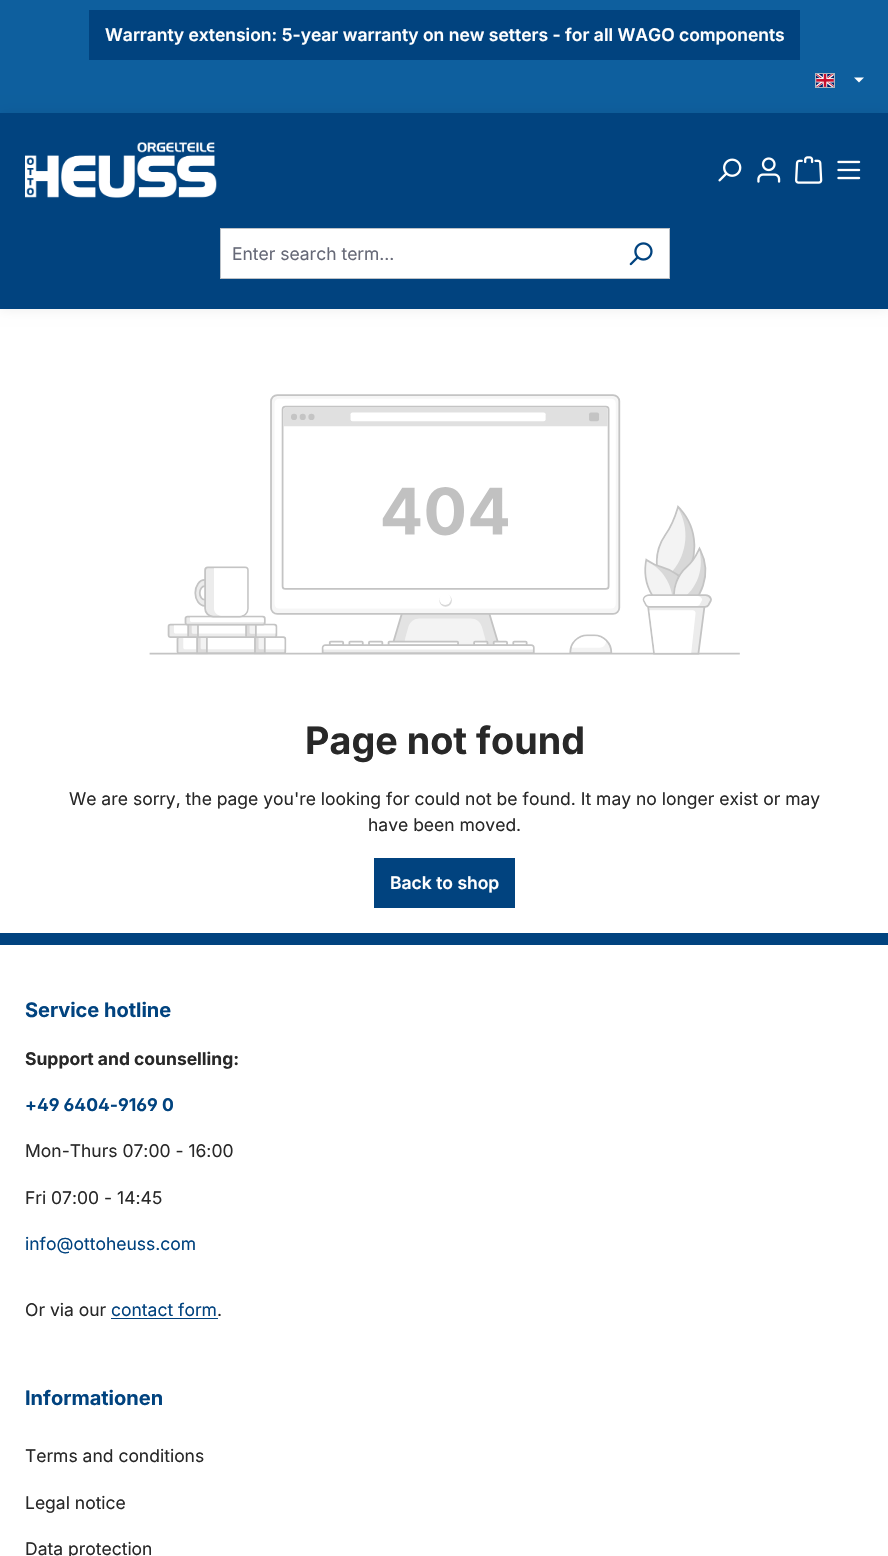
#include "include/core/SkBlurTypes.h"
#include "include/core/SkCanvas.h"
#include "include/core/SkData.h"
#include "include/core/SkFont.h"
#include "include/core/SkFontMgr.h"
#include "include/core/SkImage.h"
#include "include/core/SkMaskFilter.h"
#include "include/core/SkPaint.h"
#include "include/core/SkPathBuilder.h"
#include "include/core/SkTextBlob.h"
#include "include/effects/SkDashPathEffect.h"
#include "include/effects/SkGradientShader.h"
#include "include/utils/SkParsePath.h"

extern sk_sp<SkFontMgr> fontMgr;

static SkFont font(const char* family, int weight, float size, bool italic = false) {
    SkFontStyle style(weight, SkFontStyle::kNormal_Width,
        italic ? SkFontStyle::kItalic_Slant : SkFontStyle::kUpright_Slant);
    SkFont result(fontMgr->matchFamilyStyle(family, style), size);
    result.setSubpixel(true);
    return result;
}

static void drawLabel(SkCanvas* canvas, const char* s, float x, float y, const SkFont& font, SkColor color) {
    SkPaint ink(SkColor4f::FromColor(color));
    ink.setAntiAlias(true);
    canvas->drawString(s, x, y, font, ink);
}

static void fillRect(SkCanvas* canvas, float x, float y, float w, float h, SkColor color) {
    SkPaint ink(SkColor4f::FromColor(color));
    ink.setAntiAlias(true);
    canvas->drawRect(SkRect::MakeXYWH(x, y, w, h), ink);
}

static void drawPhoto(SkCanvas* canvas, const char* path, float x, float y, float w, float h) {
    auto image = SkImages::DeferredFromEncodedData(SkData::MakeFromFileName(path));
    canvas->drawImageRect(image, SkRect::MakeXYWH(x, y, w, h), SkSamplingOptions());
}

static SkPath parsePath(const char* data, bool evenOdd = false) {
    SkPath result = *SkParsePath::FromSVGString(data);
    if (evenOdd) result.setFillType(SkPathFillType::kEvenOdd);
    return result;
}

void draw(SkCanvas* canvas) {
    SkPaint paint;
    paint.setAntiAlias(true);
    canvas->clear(0xFFFFFFFF);
    fillRect(canvas, 0, 0, 888, 113, 0xFF0E5F9E);
    fillRect(canvas, 89, 10, 711, 50, 0xFF01437F);
    SkFont font1 = font("Inter", 600, 17.5f);
    drawLabel(canvas, "Warranty extension: 5-year warranty on new setters - for all WAGO components", 105, 41, font1, 0xFFFFFFFF);
    drawPhoto(canvas, "assets/img1.png", 816, 74, 18, 13);
    paint.setStroke(true);
    paint.setStrokeWidth(1);
    paint.setColor(0xFFADB5BD);
    canvas->drawRect(SkRect::MakeXYWH(815.5f, 73.5f, 19, 14), paint);
    paint.setStroke(false);
    paint.setColor(0xFFFFFFFF);
    canvas->drawPath(parsePath("M854 77.5H864L859 82.5Z"), paint);
    paint.setColor(0x12000000);
    paint.setMaskFilter(SkMaskFilter::MakeBlur(kNormal_SkBlurStyle, 6));
    canvas->drawRect(SkRect::MakeXYWH(0, 113, 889, 196), paint);
    paint.setMaskFilter(nullptr);
    fillRect(canvas, 0, 113, 888, 196, 0xFF01437F);
    drawPhoto(canvas, "assets/img2.png", 25, 142, 192, 56);
    drawPhoto(canvas, "assets/img3.png", 718, 158, 24, 24);
    drawPhoto(canvas, "assets/img4.png", 757, 157, 24, 26);
    drawPhoto(canvas, "assets/img5.png", 795, 156, 28, 28);
    drawPhoto(canvas, "assets/img6.png", 837, 160, 24, 20);
    fillRect(canvas, 221, 229, 448, 49, 0xFFFFFFFF);
    fillRect(canvas, 220, 228, 450, 1, 0xFFBCC1C7);
    fillRect(canvas, 220, 278, 393, 1, 0xFFBCC1C7);
    fillRect(canvas, 220, 228, 1, 51, 0xFFBCC1C7);
    SkFont font2 = font("Inter", 400, 17.5f);
    drawLabel(canvas, "Enter search term...", 232, 260, font2, 0xFF666977);
    fillRect(canvas, 669, 228, 1, 51, 0xFFBCC1C7);
    fillRect(canvas, 611, 278, 59, 1, 0xFFBCC1C7);
    drawPhoto(canvas, "assets/img7.png", 629, 242, 24, 24);
    drawPhoto(canvas, "assets/img8.png", 149, 394, 591, 261);
    SkFont font3 = font("Inter", 700, 37.75f);
    drawLabel(canvas, "Page not found", 305, 754, font3, 0xFF282828);
    drawLabel(canvas, "We are sorry, the page you're looking for could not be found. It may no longer exist or may", 69, 805, font2, 0xFF282828);
    drawLabel(canvas, "have been moved.", 368, 831, font2, 0xFF282828);
    fillRect(canvas, 374, 858, 141, 50, 0xFF01437F);
    drawLabel(canvas, "Back to shop", 390, 889, font1, 0xFFFFFFFF);
    fillRect(canvas, 0, 933, 888, 12, 0xFF01437F);
    SkFont font4 = font("Inter", 700, 20);
    drawLabel(canvas, "Service hotline", 25, 1017, font4, 0xFF01437F);
    SkFont font5 = font("Inter", 700, 17.5f);
    drawLabel(canvas, "Support and counselling:", 25, 1065, font5, 0xFF282828);
    SkFont font6 = font("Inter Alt", 700, 17.5f);
    drawLabel(canvas, "+49 6404-9169 0", 25, 1111, font6, 0xFF01437F);
    drawLabel(canvas, "Mon-Thurs 07:00 - 16:00", 25, 1157, font2, 0xFF282828);
    drawLabel(canvas, "Fri 07:00 - 14:45", 25, 1204, font2, 0xFF282828);
    drawLabel(canvas, "info@ottoheuss.com", 25, 1250, font2, 0xFF01437F);
    drawLabel(canvas, "Or via our", 25, 1316, font2, 0xFF282828);
    drawLabel(canvas, "contact form", 111, 1316, font2, 0xFF01437F);
    fillRect(canvas, 111, 1318, 107, 1, 0xFF01437F);
    drawLabel(canvas, ".", 217, 1316, font2, 0xFF282828);
    drawLabel(canvas, "Informationen", 25, 1405, font4, 0xFF01437F);
    drawLabel(canvas, "Terms and conditions", 25, 1462, font2, 0xFF282828);
    drawLabel(canvas, "Legal notice", 25, 1509, font2, 0xFF282828);
    drawLabel(canvas, "Data protection", 25, 1555, font2, 0xFF282828);
}
